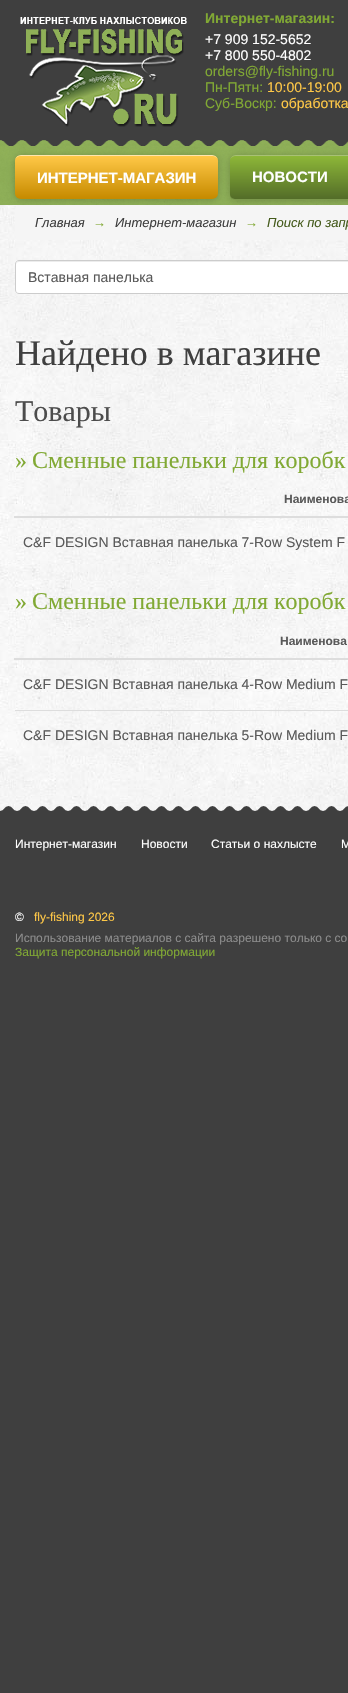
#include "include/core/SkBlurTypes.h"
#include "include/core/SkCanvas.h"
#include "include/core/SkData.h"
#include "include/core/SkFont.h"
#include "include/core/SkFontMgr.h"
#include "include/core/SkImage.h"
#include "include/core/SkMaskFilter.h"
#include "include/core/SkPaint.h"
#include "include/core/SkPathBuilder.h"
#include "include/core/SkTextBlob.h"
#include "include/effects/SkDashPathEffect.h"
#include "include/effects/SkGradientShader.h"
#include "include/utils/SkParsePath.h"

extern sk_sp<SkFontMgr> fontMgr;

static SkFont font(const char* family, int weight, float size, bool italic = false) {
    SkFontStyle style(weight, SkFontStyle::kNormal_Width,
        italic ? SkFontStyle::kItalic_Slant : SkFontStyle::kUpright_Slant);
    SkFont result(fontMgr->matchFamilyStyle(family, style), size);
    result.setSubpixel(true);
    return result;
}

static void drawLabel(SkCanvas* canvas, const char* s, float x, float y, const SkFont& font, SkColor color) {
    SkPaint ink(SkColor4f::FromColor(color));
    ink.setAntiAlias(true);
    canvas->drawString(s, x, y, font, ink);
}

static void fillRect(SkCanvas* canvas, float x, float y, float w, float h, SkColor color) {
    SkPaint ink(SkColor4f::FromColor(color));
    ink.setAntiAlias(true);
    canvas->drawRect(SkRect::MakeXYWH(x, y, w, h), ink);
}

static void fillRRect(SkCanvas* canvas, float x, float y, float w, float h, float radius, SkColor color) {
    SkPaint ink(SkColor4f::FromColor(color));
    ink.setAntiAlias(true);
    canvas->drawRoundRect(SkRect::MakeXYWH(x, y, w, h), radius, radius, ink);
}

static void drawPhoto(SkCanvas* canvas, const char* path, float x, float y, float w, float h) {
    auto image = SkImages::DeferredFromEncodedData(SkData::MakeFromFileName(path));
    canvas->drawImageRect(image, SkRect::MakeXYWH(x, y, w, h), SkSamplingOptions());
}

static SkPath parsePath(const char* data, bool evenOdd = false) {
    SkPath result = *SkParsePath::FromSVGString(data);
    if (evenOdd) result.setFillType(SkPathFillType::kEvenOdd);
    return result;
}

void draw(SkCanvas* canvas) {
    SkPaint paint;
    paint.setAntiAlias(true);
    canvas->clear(0xFF3F3F3F);
    drawPhoto(canvas, "assets/img1.png", 0, 205, 348, 606);
    drawPhoto(canvas, "assets/img2.png", 20, 17, 167, 110);
    SkFont font1 = font("Liberation Sans", 700, 14);
    drawLabel(canvas, "Интернет-магазин:", 205, 23, font1, 0xFF81A934);
    SkFont font2 = font("Liberation Sans", 400, 14);
    drawLabel(canvas, "+7 909 152-5652", 205, 44, font2, 0xFFFFFFFF);
    drawLabel(canvas, "+7 800 550-4802", 205, 60, font2, 0xFFFFFFFF);
    drawLabel(canvas, "orders@fly-fishing.ru", 205, 76, font2, 0xFF81A934);
    drawLabel(canvas, "Пн-Пятн:", 205, 92, font2, 0xFF81A934);
    drawLabel(canvas, "10:00-19:00", 267, 92, font2, 0xFFFFC847);
    drawLabel(canvas, "Суб-Воскр:", 205, 108, font2, 0xFF81A934);
    drawLabel(canvas, "обработка", 281, 108, font2, 0xFFFFC847);
    drawPhoto(canvas, "assets/img3.png", 0, 140, 348, 6);
    drawPhoto(canvas, "assets/img4.png", 0, 146, 348, 59);
    paint.setColor(0x33000000);
    paint.setMaskFilter(SkMaskFilter::MakeBlur(kNormal_SkBlurStyle, 3.5f));
    canvas->drawRoundRect(SkRect::MakeXYWH(15, 156, 203, 44), 6, 6, paint);
    paint.setMaskFilter(nullptr);
    canvas->save();
    canvas->clipPath(parsePath("M21 155H212C215.5 155 218 157.5 218 161V193C218 196.5 215.5 199 212 199H21C17.5 199 15 196.5 15 193V161C15 157.5 17.5 155 21 155Z"), true);
    {
        const SkColor colors[] = {0xFFFFC847, 0xFFC78B00};
        const float stops[] = {0, 1};
        const SkPoint ends[] = {{117, 156}, {117, 198}};
        paint.setShader(SkGradientShader::MakeLinear(ends, colors, stops, 2, SkTileMode::kClamp));
        paint.setAlpha(255);
    }
    canvas->drawRect(SkRect::MakeXYWH(15, 156, 203, 42), paint);
    canvas->restore();
    paint.setShader(nullptr);
    paint.setColor(0xFFFFE6AD);
    canvas->drawPath(parsePath("M21 155C18 155 15 158 15 161C15 158 18 156 21 156H212C215 156 218 158 218 161C218 158 215 155 212 155Z"), paint);
    paint.setColor(0xFFC78B00);
    canvas->drawPath(parsePath("M212 199C215 199 218 196 218 193C218 196 215 198 212 198H21C18 198 15 196 15 193C15 196 18 199 21 199Z"), paint);
    SkFont font3 = font("Liberation Sans", 700, 15);
    drawLabel(canvas, "ИНТЕРНЕТ-МАГАЗИН", 37, 183, font3, 0xFFFFFFFF);
    paint.setColor(0x33000000);
    paint.setMaskFilter(SkMaskFilter::MakeBlur(kNormal_SkBlurStyle, 3.5f));
    canvas->drawRoundRect(SkRect::MakeXYWH(230, 156, 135, 45), 6, 6, paint);
    paint.setMaskFilter(nullptr);
    canvas->save();
    canvas->clipPath(parsePath("M236 155H1003C1006.5 155 1009 157.5 1009 161V194C1009 197.5 1006.5 200 1003 200H236C232.5 200 230 197.5 230 194V161C230 157.5 232.5 155 236 155Z"), true);
    {
        const SkColor colors[] = {0xFF8DB738, 0xFF536C28};
        const float stops[] = {0, 1};
        const SkPoint ends[] = {{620, 156}, {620, 199}};
        paint.setShader(SkGradientShader::MakeLinear(ends, colors, stops, 2, SkTileMode::kClamp));
        paint.setAlpha(255);
    }
    canvas->drawRect(SkRect::MakeXYWH(230, 156, 118, 43), paint);
    canvas->restore();
    paint.setShader(nullptr);
    paint.setColor(0xFFA8C175);
    canvas->drawPath(parsePath("M236 155C233 155 230 158 230 161C230 158 233 156 236 156H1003C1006 156 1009 158 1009 161C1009 158 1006 155 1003 155Z"), paint);
    paint.setColor(0xFF7C994C);
    canvas->drawPath(parsePath("M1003 200C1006 200 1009 197 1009 194C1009 197 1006 199 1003 199H236C233 199 230 197 230 194C230 197 233 200 236 200Z"), paint);
    drawLabel(canvas, "НОВОСТИ", 252, 182, font3, 0xFFFFFFFF);
    fillRRect(canvas, 15, 205, 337, 35, 4, 0xFFF5F5F5);
    SkFont font4 = font("Liberation Sans", 400, 13, true);
    drawLabel(canvas, "Главная", 35, 227, font4, 0xFF3F3F3F);
    drawLabel(canvas, "→", 93, 227, font4, 0xFF81A934);
    drawLabel(canvas, "Интернет-магазин", 115, 227, font4, 0xFF3F3F3F);
    drawLabel(canvas, "→", 245, 227, font4, 0xFF81A934);
    drawLabel(canvas, "Поиск по запр", 267, 227, font4, 0xFF455B1C);
    paint.setColor(0xFFFFFFFF);
    canvas->drawPath(parsePath("M19 260H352V294H19C17 294 15 292 15 290V264C15 262 17 260 19 260Z"), paint);
    paint.setColor(0xFFECECEC);
    canvas->drawPath(parsePath("M19 262H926V261H19C17 261 16 263 16 265C16 263 17 262 19 262Z"), paint);
    paint.setStroke(true);
    paint.setStrokeWidth(1);
    paint.setColor(0xFFCCCCCC);
    canvas->drawPath(parsePath("M19 260.5H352.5V293.5H19C17 293.5 15.5 292 15.5 290V264C15.5 262 17 260.5 19 260.5Z"), paint);
    drawLabel(canvas, "Вставная панелька", 28, 282, font2, 0xFF595959);
    SkFont font5 = font("Liberation Serif", 400, 36);
    drawLabel(canvas, "Найдено в магазине", 15, 365, font5, 0xFF3F3F3F);
    SkFont font6 = font("Liberation Serif", 400, 30);
    drawLabel(canvas, "Товары", 15, 421, font6, 0xFF4C4C4C);
    SkFont font7 = font("Liberation Serif", 400, 24);
    drawLabel(canvas, "»", 15, 468, font7, 0xFF81A934);
    drawLabel(canvas, "Сменные панельки для коробк", 32, 468, font7, 0xFF81A934);
    fillRect(canvas, 14, 516, 334, 2, 0xFFDDDDDD);
    SkFont font8 = font("Liberation Sans", 700, 12);
    drawLabel(canvas, "Наименова", 284, 503, font8, 0xFF595959);
    drawLabel(canvas, "C&F DESIGN Вставная панелька 7-Row System F", 23, 547, font2, 0xFF595959);
    drawLabel(canvas, "»", 15, 609, font7, 0xFF81A934);
    drawLabel(canvas, "Сменные панельки для коробк", 32, 609, font7, 0xFF81A934);
    fillRect(canvas, 14, 658, 334, 2, 0xFFDDDDDD);
    drawLabel(canvas, "Наименова", 280, 645, font8, 0xFF595959);
    drawLabel(canvas, "C&F DESIGN Вставная панелька 4-Row Medium F", 23, 689, font2, 0xFF595959);
    fillRect(canvas, 15, 710, 333, 1, 0xFFDDDDDD);
    drawLabel(canvas, "C&F DESIGN Вставная панелька 5-Row Medium F", 23, 740, font2, 0xFF595959);
    drawPhoto(canvas, "assets/img5.png", 0, 806, 348, 5);
    SkFont font9 = font("Liberation Sans", 400, 12);
    drawLabel(canvas, "Интернет-магазин", 15, 848, font9, 0xFFFFFFFF);
    drawLabel(canvas, "Новости", 141, 848, font9, 0xFFFFFFFF);
    drawLabel(canvas, "Статьи о нахлысте", 211, 848, font9, 0xFFFFFFFF);
    drawLabel(canvas, "М", 341, 848, font9, 0xFFFFFFFF);
    drawLabel(canvas, "©", 15, 921, font9, 0xFFFFFFFF);
    drawLabel(canvas, "fly-fishing 2026", 34, 921, font9, 0xFFFFC847);
    drawLabel(canvas, "Использование материалов с сайта разрешено только с со", 15, 942, font9, 0xFF8C8C8C);
    drawLabel(canvas, "Защита персональной информации", 15, 956, font9, 0xFF81A934);
}
